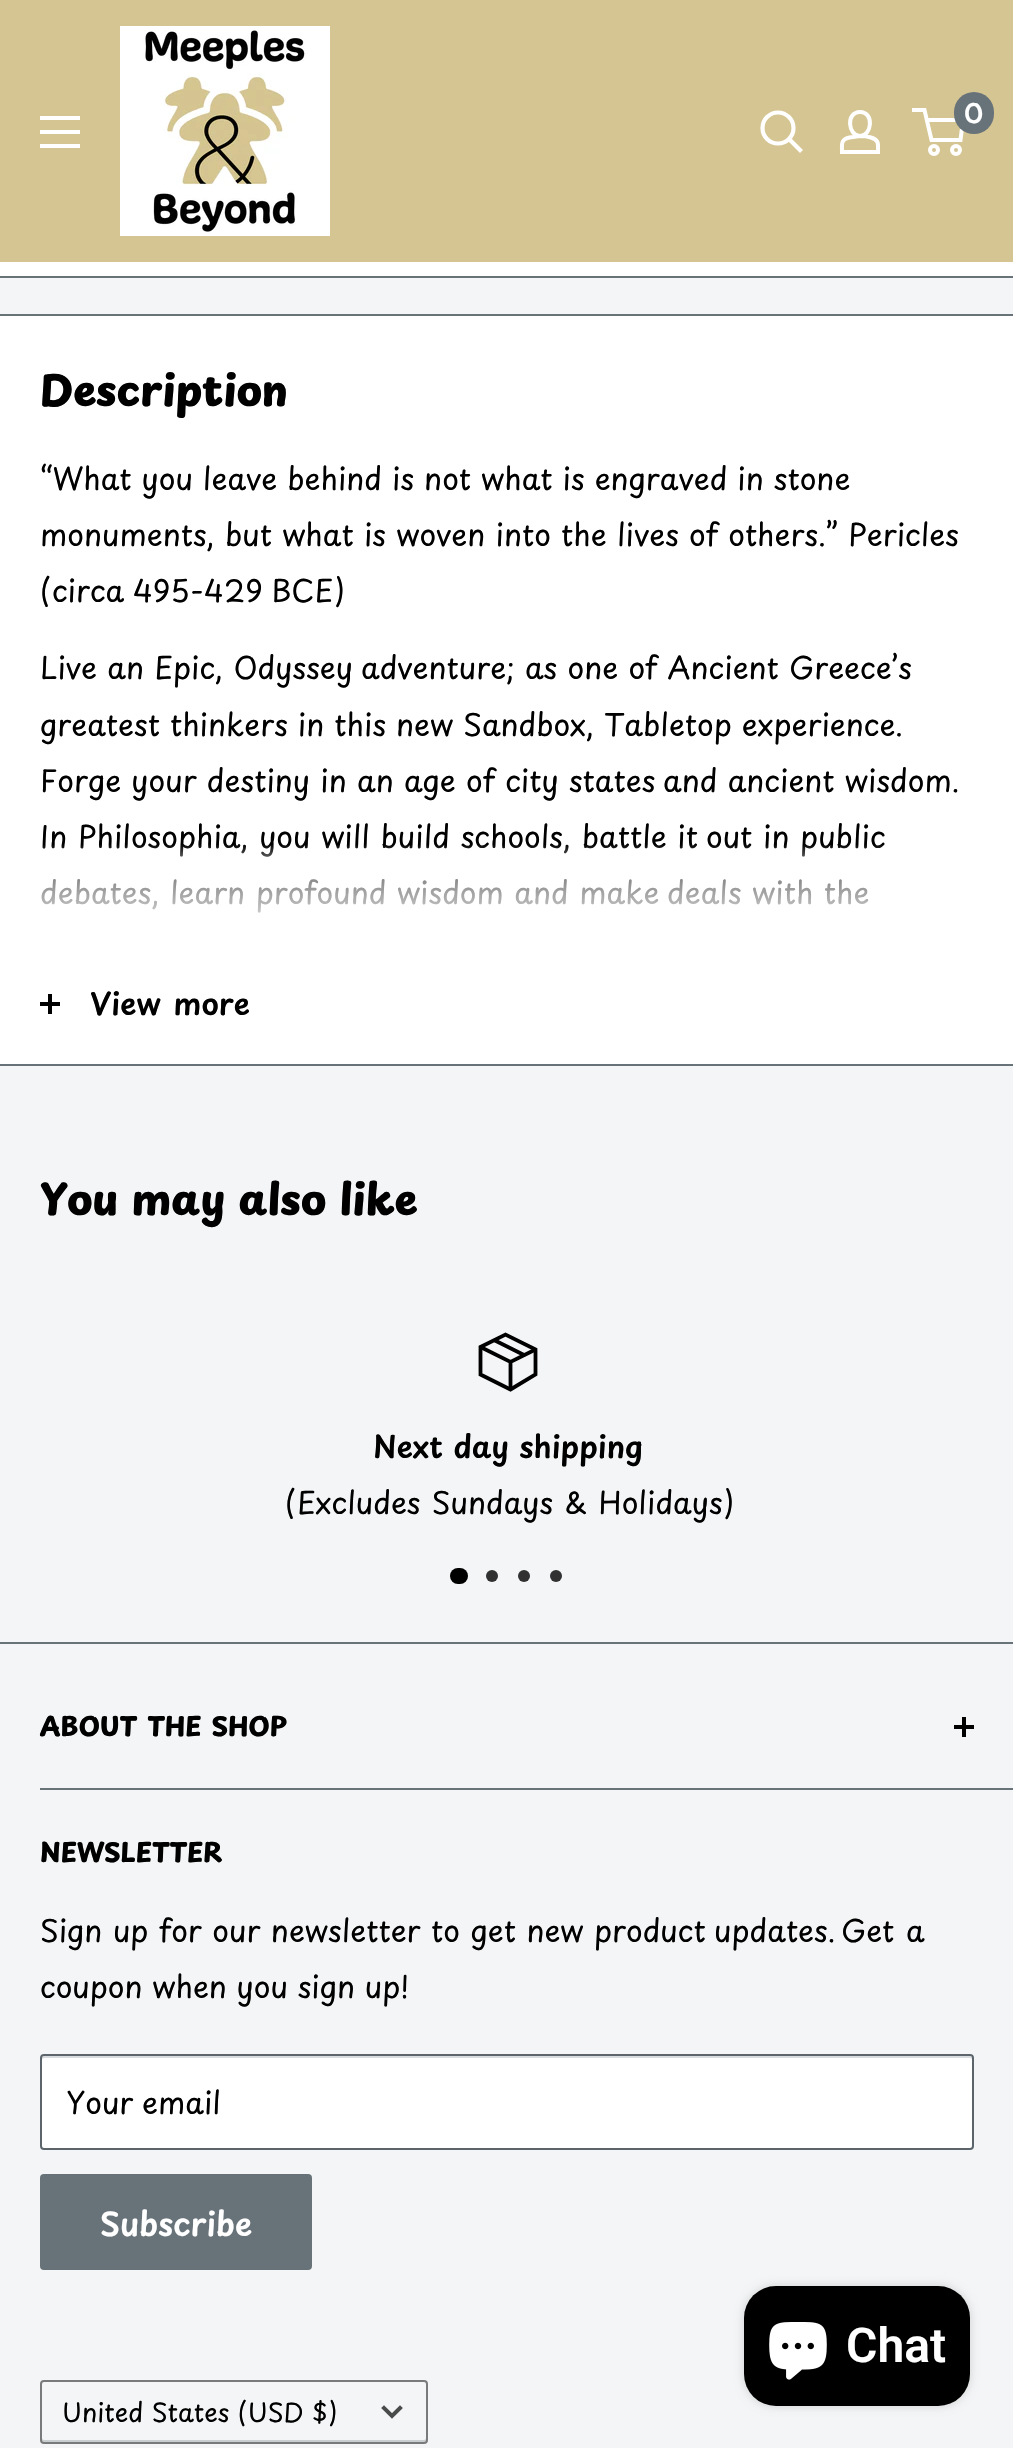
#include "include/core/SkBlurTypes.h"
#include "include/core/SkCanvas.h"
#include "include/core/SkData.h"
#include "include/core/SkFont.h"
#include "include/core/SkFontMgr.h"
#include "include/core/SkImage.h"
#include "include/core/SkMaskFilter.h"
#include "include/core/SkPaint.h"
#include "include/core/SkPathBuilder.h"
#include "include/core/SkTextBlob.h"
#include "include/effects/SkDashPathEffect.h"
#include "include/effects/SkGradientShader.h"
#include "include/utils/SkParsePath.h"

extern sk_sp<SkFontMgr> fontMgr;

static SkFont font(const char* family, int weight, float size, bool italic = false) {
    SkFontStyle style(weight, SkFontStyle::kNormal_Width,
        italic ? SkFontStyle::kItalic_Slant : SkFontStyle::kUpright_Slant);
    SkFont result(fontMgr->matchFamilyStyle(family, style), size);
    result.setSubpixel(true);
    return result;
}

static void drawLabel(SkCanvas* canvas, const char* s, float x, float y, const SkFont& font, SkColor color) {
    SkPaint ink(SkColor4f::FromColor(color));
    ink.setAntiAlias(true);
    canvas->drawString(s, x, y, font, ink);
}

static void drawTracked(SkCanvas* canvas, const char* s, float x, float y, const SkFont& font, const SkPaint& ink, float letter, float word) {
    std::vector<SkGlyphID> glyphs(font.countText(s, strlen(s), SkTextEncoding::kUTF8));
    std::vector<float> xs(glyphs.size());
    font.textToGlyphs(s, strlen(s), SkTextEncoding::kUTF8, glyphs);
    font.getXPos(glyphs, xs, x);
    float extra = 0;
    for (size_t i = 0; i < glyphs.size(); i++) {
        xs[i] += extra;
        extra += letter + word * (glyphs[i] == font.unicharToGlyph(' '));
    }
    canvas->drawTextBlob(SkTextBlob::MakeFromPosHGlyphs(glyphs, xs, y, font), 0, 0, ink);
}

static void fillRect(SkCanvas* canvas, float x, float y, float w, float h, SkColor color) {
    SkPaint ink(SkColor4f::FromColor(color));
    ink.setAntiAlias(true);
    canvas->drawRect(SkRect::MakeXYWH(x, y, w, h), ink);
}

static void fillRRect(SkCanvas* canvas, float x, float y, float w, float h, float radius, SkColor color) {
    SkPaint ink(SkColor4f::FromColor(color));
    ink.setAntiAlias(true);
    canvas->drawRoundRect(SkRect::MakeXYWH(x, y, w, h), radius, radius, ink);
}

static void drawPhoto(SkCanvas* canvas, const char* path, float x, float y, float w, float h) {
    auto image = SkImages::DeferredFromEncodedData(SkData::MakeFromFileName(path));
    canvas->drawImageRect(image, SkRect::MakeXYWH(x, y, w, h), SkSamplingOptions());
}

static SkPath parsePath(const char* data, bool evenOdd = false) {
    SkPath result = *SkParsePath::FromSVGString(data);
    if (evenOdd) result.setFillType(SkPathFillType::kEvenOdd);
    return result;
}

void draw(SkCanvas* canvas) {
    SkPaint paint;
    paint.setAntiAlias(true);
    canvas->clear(0xFFF3F5F6);
    fillRect(canvas, 0, 0, 1013, 262, 0xFFD5C592);
    drawPhoto(canvas, "assets/img1.png", 120, 26, 210, 210);
    paint.setStroke(true);
    paint.setStrokeWidth(4.2f);
    paint.setStrokeCap(SkPaint::kSquare_Cap);
    paint.setColor(0xFFFFFFFF);
    canvas->drawPath(parsePath("M800 150L789.5 139.5"), paint);
    paint.setStrokeCap(SkPaint::kButt_Cap);
    canvas->drawCircle(778, 128, 15.5f, paint);
    paint.setStrokeWidth(4);
    canvas->drawPath(parsePath("M860 136C864 136 867.5 136.5 871 137.5C879.5 140 878 144.5 878 152H842C842 144 840.5 139.5 849.5 137.5ZM860 136C848 136 845.5 112 860 112C874.5 112 872 136 860 136Z"), paint);
    canvas->drawCircle(934, 150, 4, paint);
    canvas->drawCircle(956, 150, 4, paint);
    canvas->drawPath(parsePath("M926.5 120H963L960.5 140H931.5L924.5 110H912"), paint);
    fillRRect(canvas, 954, 92, 40, 42, 20, 0xFF677279);
    SkFont font1 = font("Playpen Sans", 600, 26);
    drawLabel(canvas, "0", 964, 123, font1, 0xFFFFFFFF);
    paint.setStroke(false);
    canvas->drawPath(parsePath("M40 144H80V148H40ZM40 116H80V120H40ZM40 130H80V134H40Z", true), paint);
    fillRect(canvas, 0, 262, 1013, 14, 0xFFFFFFFF);
    fillRect(canvas, 0, 276, 1013, 2, 0xFF677279);
    fillRect(canvas, 0, 316, 1013, 627, 0xFFFFFFFF);
    fillRect(canvas, 0, 314, 1013, 2, 0xFF677279);
    fillRect(canvas, 0, 1064, 1013, 2, 0xFF677279);
    SkFont font2 = font("Playpen Sans", 800, 42);
    drawLabel(canvas, "Description", 40, 406, font2, 0xFF000000);
    SkFont font3 = font("Playpen Sans", 400, 30);
    paint.setColor(0xFF000000);
    drawTracked(canvas, "“What you leave behind is not what is engraved in stone", 40, 490, font3, paint, 0, 0.25f);
    drawTracked(canvas, "monuments, but what is woven into the lives of others.” Pericles", 40, 546, font3, paint, 0, 0.5f);
    drawTracked(canvas, "(circa 495-429 BCE)", 40, 602, font3, paint, 0, -1);
    drawTracked(canvas, "Live an Epic, Odyssey", 40, 679, font3, paint, 0, 0.5f);
    drawTracked(canvas, "adventure; as one of Ancient Greece’s", 361, 679, font3, paint, 0, 0.5f);
    drawTracked(canvas, "greatest thinkers in this new Sandbox, Tabletop experience.", 40, 736, font3, paint, 0, 0.25f);
    drawTracked(canvas, "Forge your destiny in an age of city states", 40, 792, font3, paint, 0, 0.5f);
    drawTracked(canvas, "and ancient wisdom.", 663, 792, font3, paint, 0, 0.5f);
    drawTracked(canvas, "In Philosophia, you will build schools, battle it", 40, 848, font3, paint, 0, 0.9f);
    drawTracked(canvas, "out in public", 706, 848, font3, paint, 0, 0.9f);
    drawTracked(canvas, "debates, learn profound wisdom and make", 40, 904, font3, paint, 0, 0.75f);
    drawTracked(canvas, "deals with the", 667, 904, font3, paint, 0, 0.75f);
    fillRect(canvas, 0, 944, 1013, 120, 0xFFFFFFFF);
    {
        const SkColor colors[] = {0x00FFFFFF, 0x66FFFFFF, 0xFFFFFFFF};
        const float stops[] = {0, 0.15f, 1};
        const SkPoint ends[] = {{507, 844}, {507, 944}};
        paint.setShader(SkGradientShader::MakeLinear(ends, colors, stops, 3, SkTileMode::kClamp));
        paint.setAlpha(255);
    }
    canvas->drawRect(SkRect::MakeXYWH(0, 845, 1013, 99), paint);
    fillRect(canvas, 48, 994, 4, 20, 0xFF000000);
    fillRect(canvas, 40, 1002, 20, 4, 0xFF000000);
    SkFont font4 = font("Playpen Sans", 600, 30);
    paint.setShader(nullptr);
    paint.setColor(0xFF000000);
    drawTracked(canvas, "View more", 90, 1015, font4, paint, 0, 3);
    drawLabel(canvas, "You may also like", 40, 1215, font2, 0xFF000000);
    paint.setStroke(true);
    paint.setStrokeWidth(3.8f);
    canvas->drawPath(parsePath("M494 1340L524 1355M535.5 1349.5L510.5 1362L480.5 1347M510.5 1362V1389.5"), paint);
    paint.setStrokeCap(SkPaint::kSquare_Cap);
    canvas->drawPath(parsePath("M535.5 1349.5V1374.5L510.5 1389.5L480.5 1374.5V1347L505.5 1334.5Z"), paint);
    paint.setStroke(false);
    drawTracked(canvas, "Next day shipping", 373, 1458, font4, paint, 0, 0.9f);
    drawTracked(canvas, "(Excludes Sundays & Holidays)", 285, 1514, font3, paint, 0, 1.5f);
    fillRRect(canvas, 450, 1568, 18, 16, 8, 0xFF000000);
    paint.setColor(0xFF313131);
    canvas->drawCircle(492, 1576, 6, paint);
    canvas->drawCircle(524, 1576, 6, paint);
    canvas->drawCircle(556, 1576, 6, paint);
    fillRect(canvas, 0, 1642, 1013, 2, 0xFF677279);
    fillRect(canvas, 40, 1788, 973, 2, 0xFF677279);
    SkFont font5 = font("Playpen Sans", 800, 26);
    paint.setColor(0xFF000000);
    drawTracked(canvas, "ABOUT THE SHOP", 40, 1736, font5, paint, 0, 2);
    fillRect(canvas, 962, 1717, 4, 20, 0xFF000000);
    fillRect(canvas, 954, 1725, 20, 4, 0xFF000000);
    drawLabel(canvas, "NEWSLETTER", 40, 1862, font5, 0xFF000000);
    drawTracked(canvas, "Sign up for our newsletter to get new product", 40, 1942, font3, paint, 0, 0.75f);
    drawTracked(canvas, "updates.", 714, 1942, font3, paint, 0, 0.75f);
    drawTracked(canvas, "Get a", 841, 1942, font3, paint, 0, 2);
    drawLabel(canvas, "coupon when you sign up!", 40, 1998, font3, 0xFF000000);
    fillRRect(canvas, 40, 2054, 934, 96, 4, 0xFFFFFFFF);
    paint.setColor(0xFFD9DCDE);
    canvas->drawPath(parsePath("M44 2058H970C971 2058 972 2059 972 2060C972 2059 972 2057 971 2057L970 2056H44L42 2057V2060C42 2059 43 2058 44 2058Z"), paint);
    paint.setStroke(true);
    paint.setStrokeWidth(2);
    paint.setStrokeCap(SkPaint::kButt_Cap);
    paint.setColor(0xFF5B656B);
    canvas->drawRoundRect(SkRect::MakeXYWH(41, 2055, 932, 94), 3, 3, paint);
    paint.setStroke(false);
    paint.setColor(0xFF000000);
    drawTracked(canvas, "Your email", 66, 2114, font3, paint, 0, -1);
    fillRRect(canvas, 40, 2174, 272, 96, 4, 0xFF677279);
    SkFont font6 = font("Playpen Sans", 600, 32);
    drawLabel(canvas, "Subscribe", 100, 2236, font6, 0xFFFFFFFF);
    paint.setColor(0xFFC9CED1);
    canvas->drawPath(parsePath("M42 2438V2440C42 2441 43 2442 44 2442H424C425 2442 426 2441 426 2440V2438C426 2439 425 2440 424 2440H44C43 2440 42 2439 42 2438Z"), paint);
    paint.setStroke(true);
    paint.setColor(0x80000000);
    canvas->drawRoundRect(SkRect::MakeXYWH(41, 2381, 386, 62), 3, 3, paint);
    SkFont font7 = font("Playpen Sans", 400, 25.5f);
    drawLabel(canvas, "United States (USD $)", 62, 2422, font7, 0xFF000000);
    paint.setStrokeWidth(4);
    paint.setStrokeCap(SkPaint::kSquare_Cap);
    paint.setColor(0xFF494A4A);
    canvas->drawPath(parsePath("M400 2408L392 2416L384 2408"), paint);
    paint.setStroke(false);
    paint.setColor(0x26000000);
    paint.setMaskFilter(SkMaskFilter::MakeBlur(kNormal_SkBlurStyle, 5));
    canvas->drawRoundRect(SkRect::MakeXYWH(744, 2286, 226, 120), 32, 32, paint);
    paint.setMaskFilter(nullptr);
    fillRRect(canvas, 744, 2286, 226, 120, 32, 0xFF000000);
    drawPhoto(canvas, "assets/img2.png", 769, 2322, 58, 58);
    SkFont font8 = font("Roboto", 600, 48);
    drawLabel(canvas, "Chat", 846, 2362, font8, 0xFFFFFFFF);
}
